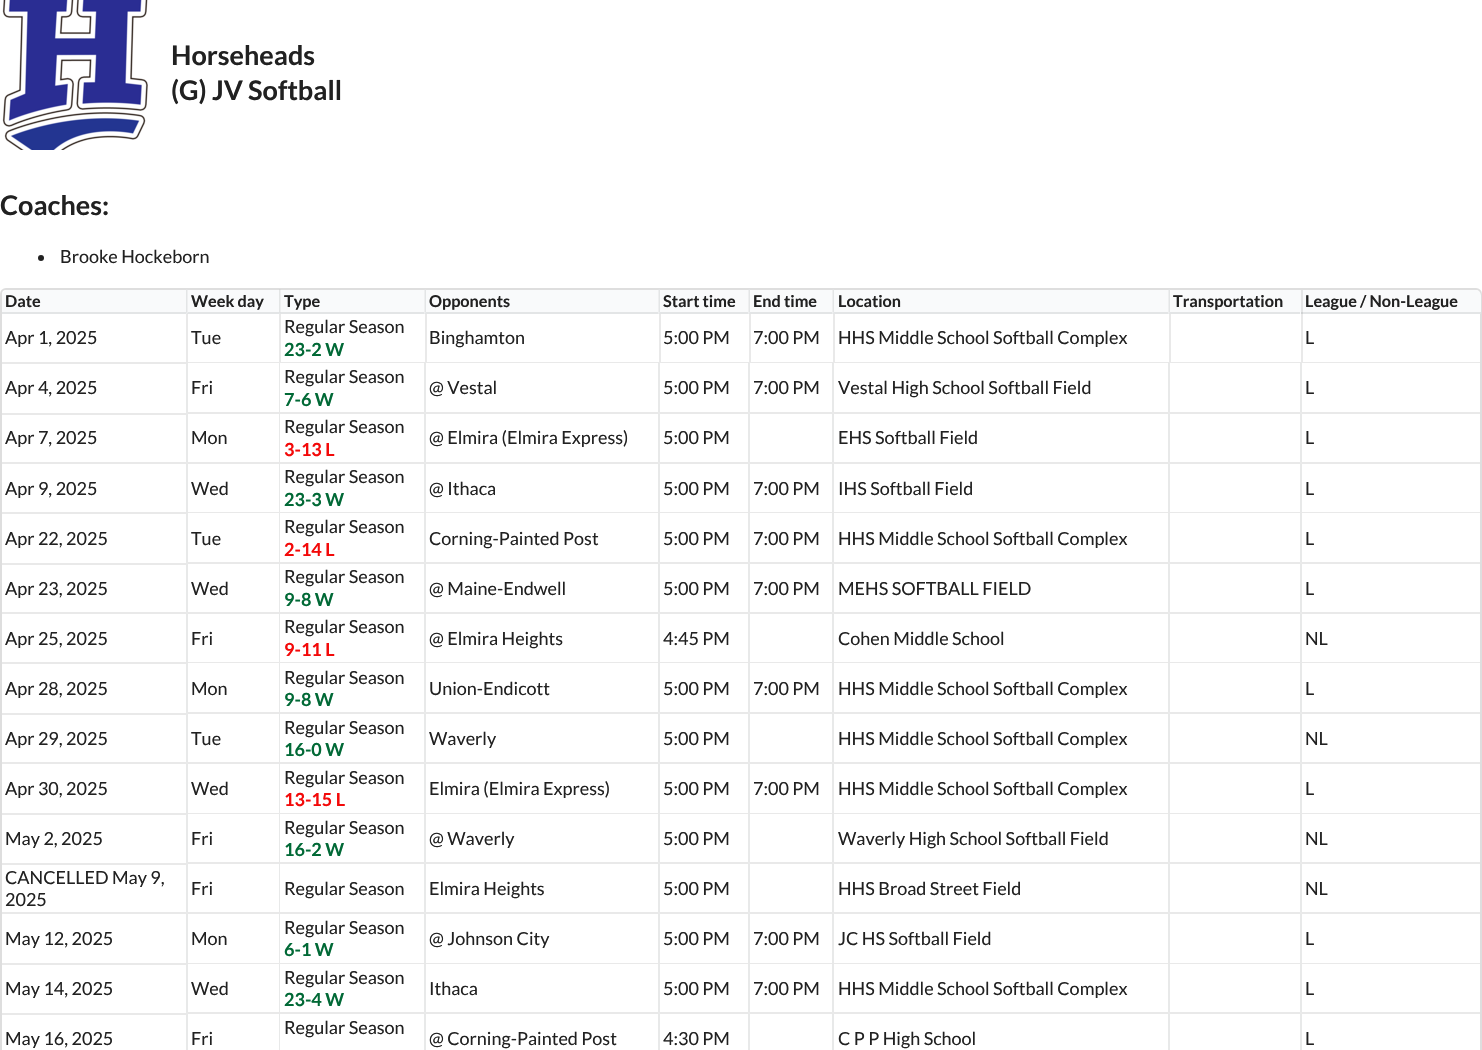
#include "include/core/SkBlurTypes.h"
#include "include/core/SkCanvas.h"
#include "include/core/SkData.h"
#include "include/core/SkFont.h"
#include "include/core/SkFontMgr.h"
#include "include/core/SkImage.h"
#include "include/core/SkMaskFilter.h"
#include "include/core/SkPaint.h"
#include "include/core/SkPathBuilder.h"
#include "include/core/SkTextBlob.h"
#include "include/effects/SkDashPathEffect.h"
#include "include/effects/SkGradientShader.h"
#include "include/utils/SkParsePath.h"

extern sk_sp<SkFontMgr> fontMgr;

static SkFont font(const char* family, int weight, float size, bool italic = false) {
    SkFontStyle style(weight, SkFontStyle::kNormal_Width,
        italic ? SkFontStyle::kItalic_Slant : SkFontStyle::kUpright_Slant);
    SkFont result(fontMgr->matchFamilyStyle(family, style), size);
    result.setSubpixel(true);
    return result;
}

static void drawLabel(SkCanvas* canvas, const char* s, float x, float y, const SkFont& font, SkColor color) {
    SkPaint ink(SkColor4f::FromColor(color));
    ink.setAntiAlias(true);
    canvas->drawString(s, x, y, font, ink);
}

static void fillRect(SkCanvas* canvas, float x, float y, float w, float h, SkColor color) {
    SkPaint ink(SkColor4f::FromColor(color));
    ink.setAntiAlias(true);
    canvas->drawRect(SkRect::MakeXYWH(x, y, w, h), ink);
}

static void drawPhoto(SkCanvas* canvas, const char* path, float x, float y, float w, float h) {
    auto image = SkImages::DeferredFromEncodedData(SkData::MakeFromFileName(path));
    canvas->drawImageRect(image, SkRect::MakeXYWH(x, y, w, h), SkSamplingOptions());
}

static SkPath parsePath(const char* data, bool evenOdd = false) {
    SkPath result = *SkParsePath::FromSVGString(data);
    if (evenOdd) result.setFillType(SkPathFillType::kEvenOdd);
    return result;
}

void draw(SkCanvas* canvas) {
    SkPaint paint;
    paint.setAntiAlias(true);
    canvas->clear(0xFFFFFFFF);
    drawPhoto(canvas, "assets/img1.png", 2, 0, 146, 150);
    SkFont font1 = font("Lato", 700, 27);
    drawLabel(canvas, "Horseheads", 171, 65, font1, 0xFF212121);
    drawLabel(canvas, "(G) JV Softball", 171, 100, font1, 0xFF212121);
    drawLabel(canvas, "Coaches:", 0, 215, font1, 0xFF212121);
    paint.setColor(0xFF212121);
    canvas->drawCircle(41, 258, 3, paint);
    SkFont font2 = font("Lato", 400, 18);
    drawLabel(canvas, "Brooke Hockeborn", 60, 263, font2, 0xFF212121);
    paint.setStroke(true);
    paint.setStrokeWidth(2);
    paint.setColor(0xFFDEDEDE);
    canvas->drawRoundRect(SkRect::MakeXYWH(1, 289, 1480, 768), 5, 5, paint);
    paint.setStroke(false);
    paint.setColor(0xFFF9FAFB);
    canvas->drawPath(parsePath("M8 290H186V314H2V296C2 292.5 4.5 290 8 290Z"), paint);
    fillRect(canvas, 2, 312, 184, 2, 0xFFE3E5E6);
    SkFont font3 = font("Lato", 700, 16.25f);
    drawLabel(canvas, "Date", 5, 307, font3, 0xFF212121);
    fillRect(canvas, 186, 290, 1115, 24, 0xFFF9FAFB);
    paint.setColor(0xFFE3E5E6);
    canvas->drawPath(parsePath("M279 314H186L188 312H279Z"), paint);
    canvas->drawPath(parsePath("M186 313.5V289.5H187.5V312Z"), paint);
    drawLabel(canvas, "Week day", 191, 307, font3, 0xFF212121);
    canvas->drawPath(parsePath("M424 314H279L280 312H424Z"), paint);
    paint.setColor(0x1A222426);
    canvas->drawPath(parsePath("M279 313.5V289.5H280.5V312Z"), paint);
    drawLabel(canvas, "Type", 284, 307, font3, 0xFF212121);
    paint.setColor(0xFFE3E5E6);
    canvas->drawPath(parsePath("M658 314H424L426 312H658Z"), paint);
    canvas->drawPath(parsePath("M424.5 313.5V289.5H426V312Z"), paint);
    drawLabel(canvas, "Opponents", 429, 307, font3, 0xFF212121);
    canvas->drawPath(parsePath("M748 314H658L660 312H748Z"), paint);
    canvas->drawPath(parsePath("M658.5 313.5V289.5H660V312Z"), paint);
    drawLabel(canvas, "Start time", 663, 307, font3, 0xFF212121);
    canvas->drawPath(parsePath("M832 314H748L750 312H832Z"), paint);
    canvas->drawPath(parsePath("M748.5 313.5V289.5H750V312Z"), paint);
    drawLabel(canvas, "End time", 753, 307, font3, 0xFF212121);
    canvas->drawPath(parsePath("M1168 314H832L834 312H1168Z"), paint);
    canvas->drawPath(parsePath("M832.5 313.5V289.5H834V312Z"), paint);
    drawLabel(canvas, "Location", 838, 307, font3, 0xFF212121);
    canvas->drawPath(parsePath("M1300 314H1168L1170 312H1300Z"), paint);
    canvas->drawPath(parsePath("M1168.5 313.5V289.5H1170V312Z"), paint);
    drawLabel(canvas, "Transportation", 1173, 307, font3, 0xFF212121);
    paint.setColor(0xFFF9FAFB);
    canvas->drawPath(parsePath("M1301 290H1475C1478.5 290 1481 292.5 1481 296V314H1301Z"), paint);
    fillRect(canvas, 1301, 290, 2, 24, 0xFFE4E5E6);
    fillRect(canvas, 1301, 312, 180, 2, 0xFFE3E5E6);
    fillRect(canvas, 1301, 312, 2, 2, 0xFFD0D2D3);
    drawLabel(canvas, "League / Non-League", 1305, 307, font3, 0xFF212121);
    drawLabel(canvas, "Apr 1, 2025", 5, 344, font2, 0xFF212121);
    fillRect(canvas, 186, 314, 2, 48, 0xFFE9E9E9);
    drawLabel(canvas, "Tue", 191, 344, font2, 0xFF212121);
    fillRect(canvas, 279, 314, 2, 48, 0xFFE9E9E9);
    drawLabel(canvas, "Regular Season", 284, 333, font2, 0xFF212121);
    SkFont font4 = font("Lato", 700, 18);
    drawLabel(canvas, "23-2 W", 284, 356, font4, 0xFF016936);
    fillRect(canvas, 425, 314, 2, 48, 0xFFE9E9E9);
    drawLabel(canvas, "Binghamton", 429, 344, font2, 0xFF212121);
    fillRect(canvas, 659, 314, 2, 48, 0xFFE9E9E9);
    drawLabel(canvas, "5:00 PM", 663, 344, font2, 0xFF212121);
    fillRect(canvas, 749, 314, 2, 48, 0xFFE9E9E9);
    drawLabel(canvas, "7:00 PM", 753, 344, font2, 0xFF212121);
    fillRect(canvas, 833, 314, 2, 48, 0xFFE9E9E9);
    drawLabel(canvas, "HHS Middle School Softball Complex", 838, 344, font2, 0xFF212121);
    fillRect(canvas, 1169, 314, 2, 48, 0xFFE9E9E9);
    fillRect(canvas, 1301, 314, 2, 48, 0xFFE9E9E9);
    drawLabel(canvas, "L", 1305, 344, font2, 0xFF212121);
    fillRect(canvas, 2, 362, 184, 2, 0xFFE9E9E9);
    drawLabel(canvas, "Apr 4, 2025", 5, 394, font2, 0xFF212121);
    paint.setColor(0xFFE9E9E9);
    canvas->drawPath(parsePath("M186 362H279V363H188Z"), paint);
    paint.setColor(0x1A222426);
    canvas->drawPath(parsePath("M186 412V362L188 363V412Z"), paint);
    drawLabel(canvas, "Fri", 191, 394, font2, 0xFF212121);
    paint.setColor(0xFFE9E9E9);
    canvas->drawPath(parsePath("M279 362H424V363H280Z"), paint);
    paint.setColor(0x1A222426);
    canvas->drawPath(parsePath("M279 412V362L280 363V412Z"), paint);
    drawLabel(canvas, "Regular Season", 284, 383, font2, 0xFF212121);
    drawLabel(canvas, "7-6 W", 284, 406, font4, 0xFF016936);
    paint.setColor(0xFFE9E9E9);
    canvas->drawPath(parsePath("M424 362H658V363H426Z"), paint);
    paint.setColor(0x1A222426);
    canvas->drawPath(parsePath("M424 412V362L426 363V412Z"), paint);
    drawLabel(canvas, "@ Vestal", 429, 394, font2, 0xFF212121);
    paint.setColor(0xFFE9E9E9);
    canvas->drawPath(parsePath("M658 362H748V363H660Z"), paint);
    paint.setColor(0x1A222426);
    canvas->drawPath(parsePath("M658 412V362L660 363V412Z"), paint);
    drawLabel(canvas, "5:00 PM", 663, 394, font2, 0xFF212121);
    paint.setColor(0xFFE9E9E9);
    canvas->drawPath(parsePath("M748 362H832V363H750Z"), paint);
    paint.setColor(0x1A222426);
    canvas->drawPath(parsePath("M748 412V362L750 363V412Z"), paint);
    drawLabel(canvas, "7:00 PM", 753, 394, font2, 0xFF212121);
    paint.setColor(0xFFE9E9E9);
    canvas->drawPath(parsePath("M832 362H1168V363H834Z"), paint);
    paint.setColor(0x1A222426);
    canvas->drawPath(parsePath("M832 412V362L834 363V412Z"), paint);
    drawLabel(canvas, "Vestal High School Softball Field", 838, 394, font2, 0xFF212121);
    paint.setColor(0xFFE9E9E9);
    canvas->drawPath(parsePath("M1168 362H1300V363H1170Z"), paint);
    paint.setColor(0x1A222426);
    canvas->drawPath(parsePath("M1168 412V362L1170 363V412Z"), paint);
    paint.setColor(0xFFE9E9E9);
    canvas->drawPath(parsePath("M1300 362H1480V363H1302Z"), paint);
    paint.setColor(0x1A222426);
    canvas->drawPath(parsePath("M1300 412V362L1302 363V412Z"), paint);
    drawLabel(canvas, "L", 1305, 394, font2, 0xFF212121);
    fillRect(canvas, 2, 413, 184, 2, 0xFFE9E9E9);
    drawLabel(canvas, "Apr 7, 2025", 5, 444, font2, 0xFF212121);
    paint.setColor(0xFFE9E9E9);
    canvas->drawPath(parsePath("M186 412H279V414H188Z"), paint);
    paint.setColor(0x1A222426);
    canvas->drawPath(parsePath("M186 462V412L188 414V462Z"), paint);
    drawLabel(canvas, "Mon", 191, 444, font2, 0xFF212121);
    paint.setColor(0xFFE9E9E9);
    canvas->drawPath(parsePath("M279 412H424V414H280Z"), paint);
    paint.setColor(0x1A222426);
    canvas->drawPath(parsePath("M279 462V412L280 414V462Z"), paint);
    drawLabel(canvas, "Regular Season", 284, 433, font2, 0xFF212121);
    drawLabel(canvas, "3-13 L", 284, 456, font4, 0xFFF30909);
    paint.setColor(0xFFE9E9E9);
    canvas->drawPath(parsePath("M424 412H658V414H426Z"), paint);
    paint.setColor(0x1A222426);
    canvas->drawPath(parsePath("M424 462V412L426 414V462Z"), paint);
    drawLabel(canvas, "@ Elmira (Elmira Express)", 429, 444, font2, 0xFF212121);
    paint.setColor(0xFFE9E9E9);
    canvas->drawPath(parsePath("M658 412H748V414H660Z"), paint);
    paint.setColor(0x1A222426);
    canvas->drawPath(parsePath("M658 462V412L660 414V462Z"), paint);
    drawLabel(canvas, "5:00 PM", 663, 444, font2, 0xFF212121);
    paint.setColor(0xFFE9E9E9);
    canvas->drawPath(parsePath("M748 412H832V414H750Z"), paint);
    paint.setColor(0x1A222426);
    canvas->drawPath(parsePath("M748 462V412L750 414V462Z"), paint);
    paint.setColor(0xFFE9E9E9);
    canvas->drawPath(parsePath("M832 412H1168V414H834Z"), paint);
    paint.setColor(0x1A222426);
    canvas->drawPath(parsePath("M832 462V412L834 414V462Z"), paint);
    drawLabel(canvas, "EHS Softball Field", 838, 444, font2, 0xFF212121);
    paint.setColor(0xFFE9E9E9);
    canvas->drawPath(parsePath("M1168 412H1300V414H1170Z"), paint);
    paint.setColor(0x1A222426);
    canvas->drawPath(parsePath("M1168 462V412L1170 414V462Z"), paint);
    paint.setColor(0xFFE9E9E9);
    canvas->drawPath(parsePath("M1300 412H1480V414H1302Z"), paint);
    paint.setColor(0x1A222426);
    canvas->drawPath(parsePath("M1300 462V412L1302 414V462Z"), paint);
    drawLabel(canvas, "L", 1305, 444, font2, 0xFF212121);
    fillRect(canvas, 2, 462, 184, 2, 0xFFE9E9E9);
    drawLabel(canvas, "Apr 9, 2025", 5, 495, font2, 0xFF212121);
    paint.setColor(0xFFE9E9E9);
    canvas->drawPath(parsePath("M186 462H279V464H188Z"), paint);
    paint.setColor(0x1A222426);
    canvas->drawPath(parsePath("M186 512V462L188 464V512Z"), paint);
    drawLabel(canvas, "Wed", 191, 495, font2, 0xFF212121);
    paint.setColor(0xFFE9E9E9);
    canvas->drawPath(parsePath("M279 462H424V464H280Z"), paint);
    paint.setColor(0x1A222426);
    canvas->drawPath(parsePath("M279 512V462L280 464V512Z"), paint);
    drawLabel(canvas, "Regular Season", 284, 483, font2, 0xFF212121);
    drawLabel(canvas, "23-3 W", 284, 506, font4, 0xFF016936);
    paint.setColor(0xFFE9E9E9);
    canvas->drawPath(parsePath("M424 462H658V464H426Z"), paint);
    paint.setColor(0x1A222426);
    canvas->drawPath(parsePath("M424 512V462L426 464V512Z"), paint);
    drawLabel(canvas, "@ Ithaca", 429, 495, font2, 0xFF212121);
    paint.setColor(0xFFE9E9E9);
    canvas->drawPath(parsePath("M658 462H748V464H660Z"), paint);
    paint.setColor(0x1A222426);
    canvas->drawPath(parsePath("M658 512V462L660 464V512Z"), paint);
    drawLabel(canvas, "5:00 PM", 663, 495, font2, 0xFF212121);
    paint.setColor(0xFFE9E9E9);
    canvas->drawPath(parsePath("M748 462H832V464H750Z"), paint);
    paint.setColor(0x1A222426);
    canvas->drawPath(parsePath("M748 512V462L750 464V512Z"), paint);
    drawLabel(canvas, "7:00 PM", 753, 495, font2, 0xFF212121);
    paint.setColor(0xFFE9E9E9);
    canvas->drawPath(parsePath("M832 462H1168V464H834Z"), paint);
    paint.setColor(0x1A222426);
    canvas->drawPath(parsePath("M832 512V462L834 464V512Z"), paint);
    drawLabel(canvas, "IHS Softball Field", 838, 495, font2, 0xFF212121);
    paint.setColor(0xFFE9E9E9);
    canvas->drawPath(parsePath("M1168 462H1300V464H1170Z"), paint);
    paint.setColor(0x1A222426);
    canvas->drawPath(parsePath("M1168 512V462L1170 464V512Z"), paint);
    paint.setColor(0xFFE9E9E9);
    canvas->drawPath(parsePath("M1300 462H1480V464H1302Z"), paint);
    paint.setColor(0x1A222426);
    canvas->drawPath(parsePath("M1300 512V462L1302 464V512Z"), paint);
    drawLabel(canvas, "L", 1305, 495, font2, 0xFF212121);
    fillRect(canvas, 2, 512, 184, 2, 0xFFE9E9E9);
    drawLabel(canvas, "Apr 22, 2025", 5, 545, font2, 0xFF212121);
    paint.setColor(0xFFE9E9E9);
    canvas->drawPath(parsePath("M186 512H279V513H188Z"), paint);
    paint.setColor(0x1A222426);
    canvas->drawPath(parsePath("M186 562V512L188 513V562Z"), paint);
    drawLabel(canvas, "Tue", 191, 545, font2, 0xFF212121);
    paint.setColor(0xFFE9E9E9);
    canvas->drawPath(parsePath("M279 512H424V513H280Z"), paint);
    paint.setColor(0x1A222426);
    canvas->drawPath(parsePath("M279 562V512L280 513V562Z"), paint);
    drawLabel(canvas, "Regular Season", 284, 533, font2, 0xFF212121);
    drawLabel(canvas, "2-14 L", 284, 556, font4, 0xFFF30909);
    paint.setColor(0xFFE9E9E9);
    canvas->drawPath(parsePath("M424 512H658V513H426Z"), paint);
    paint.setColor(0x1A222426);
    canvas->drawPath(parsePath("M424 562V512L426 513V562Z"), paint);
    drawLabel(canvas, "Corning-Painted Post", 429, 545, font2, 0xFF212121);
    paint.setColor(0xFFE9E9E9);
    canvas->drawPath(parsePath("M658 512H748V513H660Z"), paint);
    paint.setColor(0x1A222426);
    canvas->drawPath(parsePath("M658 562V512L660 513V562Z"), paint);
    drawLabel(canvas, "5:00 PM", 663, 545, font2, 0xFF212121);
    paint.setColor(0xFFE9E9E9);
    canvas->drawPath(parsePath("M748 512H832V513H750Z"), paint);
    paint.setColor(0x1A222426);
    canvas->drawPath(parsePath("M748 562V512L750 513V562Z"), paint);
    drawLabel(canvas, "7:00 PM", 753, 545, font2, 0xFF212121);
    paint.setColor(0xFFE9E9E9);
    canvas->drawPath(parsePath("M832 512H1168V513H834Z"), paint);
    paint.setColor(0x1A222426);
    canvas->drawPath(parsePath("M832 562V512L834 513V562Z"), paint);
    drawLabel(canvas, "HHS Middle School Softball Complex", 838, 545, font2, 0xFF212121);
    paint.setColor(0xFFE9E9E9);
    canvas->drawPath(parsePath("M1168 512H1300V513H1170Z"), paint);
    paint.setColor(0x1A222426);
    canvas->drawPath(parsePath("M1168 562V512L1170 513V562Z"), paint);
    paint.setColor(0xFFE9E9E9);
    canvas->drawPath(parsePath("M1300 512H1480V513H1302Z"), paint);
    paint.setColor(0x1A222426);
    canvas->drawPath(parsePath("M1300 562V512L1302 513V562Z"), paint);
    drawLabel(canvas, "L", 1305, 545, font2, 0xFF212121);
    fillRect(canvas, 2, 563, 184, 2, 0xFFE9E9E9);
    drawLabel(canvas, "Apr 23, 2025", 5, 595, font2, 0xFF212121);
    paint.setColor(0xFFE9E9E9);
    canvas->drawPath(parsePath("M186 562H279V564H188Z"), paint);
    paint.setColor(0x1A222426);
    canvas->drawPath(parsePath("M186 612V562L188 564V612Z"), paint);
    drawLabel(canvas, "Wed", 191, 595, font2, 0xFF212121);
    paint.setColor(0xFFE9E9E9);
    canvas->drawPath(parsePath("M279 562H424V564H280Z"), paint);
    paint.setColor(0x1A222426);
    canvas->drawPath(parsePath("M279 612V562L280 564V612Z"), paint);
    drawLabel(canvas, "Regular Season", 284, 583, font2, 0xFF212121);
    drawLabel(canvas, "9-8 W", 284, 606, font4, 0xFF016936);
    paint.setColor(0xFFE9E9E9);
    canvas->drawPath(parsePath("M424 562H658V564H426Z"), paint);
    paint.setColor(0x1A222426);
    canvas->drawPath(parsePath("M424 612V562L426 564V612Z"), paint);
    drawLabel(canvas, "@ Maine-Endwell", 429, 595, font2, 0xFF212121);
    paint.setColor(0xFFE9E9E9);
    canvas->drawPath(parsePath("M658 562H748V564H660Z"), paint);
    paint.setColor(0x1A222426);
    canvas->drawPath(parsePath("M658 612V562L660 564V612Z"), paint);
    drawLabel(canvas, "5:00 PM", 663, 595, font2, 0xFF212121);
    paint.setColor(0xFFE9E9E9);
    canvas->drawPath(parsePath("M748 562H832V564H750Z"), paint);
    paint.setColor(0x1A222426);
    canvas->drawPath(parsePath("M748 612V562L750 564V612Z"), paint);
    drawLabel(canvas, "7:00 PM", 753, 595, font2, 0xFF212121);
    paint.setColor(0xFFE9E9E9);
    canvas->drawPath(parsePath("M832 562H1168V564H834Z"), paint);
    paint.setColor(0x1A222426);
    canvas->drawPath(parsePath("M832 612V562L834 564V612Z"), paint);
    drawLabel(canvas, "MEHS SOFTBALL FIELD", 838, 595, font2, 0xFF212121);
    paint.setColor(0xFFE9E9E9);
    canvas->drawPath(parsePath("M1168 562H1300V564H1170Z"), paint);
    paint.setColor(0x1A222426);
    canvas->drawPath(parsePath("M1168 612V562L1170 564V612Z"), paint);
    paint.setColor(0xFFE9E9E9);
    canvas->drawPath(parsePath("M1300 562H1480V564H1302Z"), paint);
    paint.setColor(0x1A222426);
    canvas->drawPath(parsePath("M1300 612V562L1302 564V612Z"), paint);
    drawLabel(canvas, "L", 1305, 595, font2, 0xFF212121);
    fillRect(canvas, 2, 612, 184, 2, 0xFFE9E9E9);
    drawLabel(canvas, "Apr 25, 2025", 5, 645, font2, 0xFF212121);
    paint.setColor(0xFFE9E9E9);
    canvas->drawPath(parsePath("M186 612H279V614H188Z"), paint);
    paint.setColor(0x1A222426);
    canvas->drawPath(parsePath("M186 662V612L188 614V662Z"), paint);
    drawLabel(canvas, "Fri", 191, 645, font2, 0xFF212121);
    paint.setColor(0xFFE9E9E9);
    canvas->drawPath(parsePath("M279 612H424V614H280Z"), paint);
    paint.setColor(0x1A222426);
    canvas->drawPath(parsePath("M279 662V612L280 614V662Z"), paint);
    drawLabel(canvas, "Regular Season", 284, 633, font2, 0xFF212121);
    drawLabel(canvas, "9-11 L", 284, 656, font4, 0xFFF30909);
    paint.setColor(0xFFE9E9E9);
    canvas->drawPath(parsePath("M424 612H658V614H426Z"), paint);
    paint.setColor(0x1A222426);
    canvas->drawPath(parsePath("M424 662V612L426 614V662Z"), paint);
    drawLabel(canvas, "@ Elmira Heights", 429, 645, font2, 0xFF212121);
    paint.setColor(0xFFE9E9E9);
    canvas->drawPath(parsePath("M658 612H748V614H660Z"), paint);
    paint.setColor(0x1A222426);
    canvas->drawPath(parsePath("M658 662V612L660 614V662Z"), paint);
    drawLabel(canvas, "4:45 PM", 663, 645, font2, 0xFF212121);
    paint.setColor(0xFFE9E9E9);
    canvas->drawPath(parsePath("M748 612H832V614H750Z"), paint);
    paint.setColor(0x1A222426);
    canvas->drawPath(parsePath("M748 662V612L750 614V662Z"), paint);
    paint.setColor(0xFFE9E9E9);
    canvas->drawPath(parsePath("M832 612H1168V614H834Z"), paint);
    paint.setColor(0x1A222426);
    canvas->drawPath(parsePath("M832 662V612L834 614V662Z"), paint);
    drawLabel(canvas, "Cohen Middle School", 838, 645, font2, 0xFF212121);
    paint.setColor(0xFFE9E9E9);
    canvas->drawPath(parsePath("M1168 612H1300V614H1170Z"), paint);
    paint.setColor(0x1A222426);
    canvas->drawPath(parsePath("M1168 662V612L1170 614V662Z"), paint);
    paint.setColor(0xFFE9E9E9);
    canvas->drawPath(parsePath("M1300 612H1480V614H1302Z"), paint);
    paint.setColor(0x1A222426);
    canvas->drawPath(parsePath("M1300 662V612L1302 614V662Z"), paint);
    drawLabel(canvas, "NL", 1305, 645, font2, 0xFF212121);
    fillRect(canvas, 2, 662, 184, 2, 0xFFE9E9E9);
    drawLabel(canvas, "Apr 28, 2025", 5, 695, font2, 0xFF212121);
    paint.setColor(0xFFE9E9E9);
    canvas->drawPath(parsePath("M186 662H279V663H188Z"), paint);
    paint.setColor(0x1A222426);
    canvas->drawPath(parsePath("M186 712V662L188 663V712Z"), paint);
    drawLabel(canvas, "Mon", 191, 695, font2, 0xFF212121);
    paint.setColor(0xFFE9E9E9);
    canvas->drawPath(parsePath("M279 662H424V663H280Z"), paint);
    paint.setColor(0x1A222426);
    canvas->drawPath(parsePath("M279 712V662L280 663V712Z"), paint);
    drawLabel(canvas, "Regular Season", 284, 684, font2, 0xFF212121);
    drawLabel(canvas, "9-8 W", 284, 706, font4, 0xFF016936);
    paint.setColor(0xFFE9E9E9);
    canvas->drawPath(parsePath("M424 662H658V663H426Z"), paint);
    paint.setColor(0x1A222426);
    canvas->drawPath(parsePath("M424 712V662L426 663V712Z"), paint);
    drawLabel(canvas, "Union-Endicott", 429, 695, font2, 0xFF212121);
    paint.setColor(0xFFE9E9E9);
    canvas->drawPath(parsePath("M658 662H748V663H660Z"), paint);
    paint.setColor(0x1A222426);
    canvas->drawPath(parsePath("M658 712V662L660 663V712Z"), paint);
    drawLabel(canvas, "5:00 PM", 663, 695, font2, 0xFF212121);
    paint.setColor(0xFFE9E9E9);
    canvas->drawPath(parsePath("M748 662H832V663H750Z"), paint);
    paint.setColor(0x1A222426);
    canvas->drawPath(parsePath("M748 712V662L750 663V712Z"), paint);
    drawLabel(canvas, "7:00 PM", 753, 695, font2, 0xFF212121);
    paint.setColor(0xFFE9E9E9);
    canvas->drawPath(parsePath("M832 662H1168V663H834Z"), paint);
    paint.setColor(0x1A222426);
    canvas->drawPath(parsePath("M832 712V662L834 663V712Z"), paint);
    drawLabel(canvas, "HHS Middle School Softball Complex", 838, 695, font2, 0xFF212121);
    paint.setColor(0xFFE9E9E9);
    canvas->drawPath(parsePath("M1168 662H1300V663H1170Z"), paint);
    paint.setColor(0x1A222426);
    canvas->drawPath(parsePath("M1168 712V662L1170 663V712Z"), paint);
    paint.setColor(0xFFE9E9E9);
    canvas->drawPath(parsePath("M1300 662H1480V663H1302Z"), paint);
    paint.setColor(0x1A222426);
    canvas->drawPath(parsePath("M1300 712V662L1302 663V712Z"), paint);
    drawLabel(canvas, "L", 1305, 695, font2, 0xFF212121);
    fillRect(canvas, 2, 713, 184, 2, 0xFFE9E9E9);
    drawLabel(canvas, "Apr 29, 2025", 5, 745, font2, 0xFF212121);
    paint.setColor(0xFFE9E9E9);
    canvas->drawPath(parsePath("M186 712H279V714H188Z"), paint);
    paint.setColor(0x1A222426);
    canvas->drawPath(parsePath("M186 762V712L188 714V762Z"), paint);
    drawLabel(canvas, "Tue", 191, 745, font2, 0xFF212121);
    paint.setColor(0xFFE9E9E9);
    canvas->drawPath(parsePath("M279 712H424V714H280Z"), paint);
    paint.setColor(0x1A222426);
    canvas->drawPath(parsePath("M279 762V712L280 714V762Z"), paint);
    drawLabel(canvas, "Regular Season", 284, 734, font2, 0xFF212121);
    drawLabel(canvas, "16-0 W", 284, 756, font4, 0xFF016936);
    paint.setColor(0xFFE9E9E9);
    canvas->drawPath(parsePath("M424 712H658V714H426Z"), paint);
    paint.setColor(0x1A222426);
    canvas->drawPath(parsePath("M424 762V712L426 714V762Z"), paint);
    drawLabel(canvas, "Waverly", 429, 745, font2, 0xFF212121);
    paint.setColor(0xFFE9E9E9);
    canvas->drawPath(parsePath("M658 712H748V714H660Z"), paint);
    paint.setColor(0x1A222426);
    canvas->drawPath(parsePath("M658 762V712L660 714V762Z"), paint);
    drawLabel(canvas, "5:00 PM", 663, 745, font2, 0xFF212121);
    paint.setColor(0xFFE9E9E9);
    canvas->drawPath(parsePath("M748 712H832V714H750Z"), paint);
    paint.setColor(0x1A222426);
    canvas->drawPath(parsePath("M748 762V712L750 714V762Z"), paint);
    paint.setColor(0xFFE9E9E9);
    canvas->drawPath(parsePath("M832 712H1168V714H834Z"), paint);
    paint.setColor(0x1A222426);
    canvas->drawPath(parsePath("M832 762V712L834 714V762Z"), paint);
    drawLabel(canvas, "HHS Middle School Softball Complex", 838, 745, font2, 0xFF212121);
    paint.setColor(0xFFE9E9E9);
    canvas->drawPath(parsePath("M1168 712H1300V714H1170Z"), paint);
    paint.setColor(0x1A222426);
    canvas->drawPath(parsePath("M1168 762V712L1170 714V762Z"), paint);
    paint.setColor(0xFFE9E9E9);
    canvas->drawPath(parsePath("M1300 712H1480V714H1302Z"), paint);
    paint.setColor(0x1A222426);
    canvas->drawPath(parsePath("M1300 762V712L1302 714V762Z"), paint);
    drawLabel(canvas, "NL", 1305, 745, font2, 0xFF212121);
    fillRect(canvas, 2, 762, 184, 2, 0xFFE9E9E9);
    drawLabel(canvas, "Apr 30, 2025", 5, 795, font2, 0xFF212121);
    paint.setColor(0xFFE9E9E9);
    canvas->drawPath(parsePath("M186 762H279V764H188Z"), paint);
    paint.setColor(0x1A222426);
    canvas->drawPath(parsePath("M186 813V762L188 764V813Z"), paint);
    drawLabel(canvas, "Wed", 191, 795, font2, 0xFF212121);
    paint.setColor(0xFFE9E9E9);
    canvas->drawPath(parsePath("M279 762H424V764H280Z"), paint);
    paint.setColor(0x1A222426);
    canvas->drawPath(parsePath("M279 813V762L280 764V813Z"), paint);
    drawLabel(canvas, "Regular Season", 284, 784, font2, 0xFF212121);
    drawLabel(canvas, "13-15 L", 284, 806, font4, 0xFFF30909);
    paint.setColor(0xFFE9E9E9);
    canvas->drawPath(parsePath("M424 762H658V764H426Z"), paint);
    paint.setColor(0x1A222426);
    canvas->drawPath(parsePath("M424 813V762L426 764V813Z"), paint);
    drawLabel(canvas, "Elmira (Elmira Express)", 429, 795, font2, 0xFF212121);
    paint.setColor(0xFFE9E9E9);
    canvas->drawPath(parsePath("M658 762H748V764H660Z"), paint);
    paint.setColor(0x1A222426);
    canvas->drawPath(parsePath("M658 813V762L660 764V813Z"), paint);
    drawLabel(canvas, "5:00 PM", 663, 795, font2, 0xFF212121);
    paint.setColor(0xFFE9E9E9);
    canvas->drawPath(parsePath("M748 762H832V764H750Z"), paint);
    paint.setColor(0x1A222426);
    canvas->drawPath(parsePath("M748 813V762L750 764V813Z"), paint);
    drawLabel(canvas, "7:00 PM", 753, 795, font2, 0xFF212121);
    paint.setColor(0xFFE9E9E9);
    canvas->drawPath(parsePath("M832 762H1168V764H834Z"), paint);
    paint.setColor(0x1A222426);
    canvas->drawPath(parsePath("M832 813V762L834 764V813Z"), paint);
    drawLabel(canvas, "HHS Middle School Softball Complex", 838, 795, font2, 0xFF212121);
    paint.setColor(0xFFE9E9E9);
    canvas->drawPath(parsePath("M1168 762H1300V764H1170Z"), paint);
    paint.setColor(0x1A222426);
    canvas->drawPath(parsePath("M1168 813V762L1170 764V813Z"), paint);
    paint.setColor(0xFFE9E9E9);
    canvas->drawPath(parsePath("M1300 762H1480V764H1302Z"), paint);
    paint.setColor(0x1A222426);
    canvas->drawPath(parsePath("M1300 813V762L1302 764V813Z"), paint);
    drawLabel(canvas, "L", 1305, 795, font2, 0xFF212121);
    fillRect(canvas, 2, 813, 184, 2, 0xFFE9E9E9);
    drawLabel(canvas, "May 2, 2025", 5, 845, font2, 0xFF212121);
    paint.setColor(0xFFE9E9E9);
    canvas->drawPath(parsePath("M186 813H279V814H188Z"), paint);
    paint.setColor(0x1A222426);
    canvas->drawPath(parsePath("M186 862V813L188 814V862Z"), paint);
    drawLabel(canvas, "Fri", 191, 845, font2, 0xFF212121);
    paint.setColor(0xFFE9E9E9);
    canvas->drawPath(parsePath("M279 813H424V814H280Z"), paint);
    paint.setColor(0x1A222426);
    canvas->drawPath(parsePath("M279 862V813L280 814V862Z"), paint);
    drawLabel(canvas, "Regular Season", 284, 834, font2, 0xFF212121);
    drawLabel(canvas, "16-2 W", 284, 856, font4, 0xFF016936);
    paint.setColor(0xFFE9E9E9);
    canvas->drawPath(parsePath("M424 813H658V814H426Z"), paint);
    paint.setColor(0x1A222426);
    canvas->drawPath(parsePath("M424 862V813L426 814V862Z"), paint);
    drawLabel(canvas, "@ Waverly", 429, 845, font2, 0xFF212121);
    paint.setColor(0xFFE9E9E9);
    canvas->drawPath(parsePath("M658 813H748V814H660Z"), paint);
    paint.setColor(0x1A222426);
    canvas->drawPath(parsePath("M658 862V813L660 814V862Z"), paint);
    drawLabel(canvas, "5:00 PM", 663, 845, font2, 0xFF212121);
    paint.setColor(0xFFE9E9E9);
    canvas->drawPath(parsePath("M748 813H832V814H750Z"), paint);
    paint.setColor(0x1A222426);
    canvas->drawPath(parsePath("M748 862V813L750 814V862Z"), paint);
    paint.setColor(0xFFE9E9E9);
    canvas->drawPath(parsePath("M832 813H1168V814H834Z"), paint);
    paint.setColor(0x1A222426);
    canvas->drawPath(parsePath("M832 862V813L834 814V862Z"), paint);
    drawLabel(canvas, "Waverly High School Softball Field", 838, 845, font2, 0xFF212121);
    paint.setColor(0xFFE9E9E9);
    canvas->drawPath(parsePath("M1168 813H1300V814H1170Z"), paint);
    paint.setColor(0x1A222426);
    canvas->drawPath(parsePath("M1168 862V813L1170 814V862Z"), paint);
    paint.setColor(0xFFE9E9E9);
    canvas->drawPath(parsePath("M1300 813H1480V814H1302Z"), paint);
    paint.setColor(0x1A222426);
    canvas->drawPath(parsePath("M1300 862V813L1302 814V862Z"), paint);
    drawLabel(canvas, "NL", 1305, 845, font2, 0xFF212121);
    fillRect(canvas, 2, 863, 184, 2, 0xFFE9E9E9);
    drawLabel(canvas, "CANCELLED May 9,", 5, 884, font2, 0xFF212121);
    drawLabel(canvas, "2025", 5, 906, font2, 0xFF212121);
    paint.setColor(0xFFE9E9E9);
    canvas->drawPath(parsePath("M186 862H279V864H188Z"), paint);
    paint.setColor(0x1A222426);
    canvas->drawPath(parsePath("M186 912V862L188 864V912Z"), paint);
    drawLabel(canvas, "Fri", 191, 895, font2, 0xFF212121);
    paint.setColor(0xFFE9E9E9);
    canvas->drawPath(parsePath("M279 862H424V864H280Z"), paint);
    paint.setColor(0x1A222426);
    canvas->drawPath(parsePath("M279 912V862L280 864V912Z"), paint);
    drawLabel(canvas, "Regular Season", 284, 895, font2, 0xFF212121);
    paint.setColor(0xFFE9E9E9);
    canvas->drawPath(parsePath("M424 862H658V864H426Z"), paint);
    paint.setColor(0x1A222426);
    canvas->drawPath(parsePath("M424 912V862L426 864V912Z"), paint);
    drawLabel(canvas, "Elmira Heights", 429, 895, font2, 0xFF212121);
    paint.setColor(0xFFE9E9E9);
    canvas->drawPath(parsePath("M658 862H748V864H660Z"), paint);
    paint.setColor(0x1A222426);
    canvas->drawPath(parsePath("M658 912V862L660 864V912Z"), paint);
    drawLabel(canvas, "5:00 PM", 663, 895, font2, 0xFF212121);
    paint.setColor(0xFFE9E9E9);
    canvas->drawPath(parsePath("M748 862H832V864H750Z"), paint);
    paint.setColor(0x1A222426);
    canvas->drawPath(parsePath("M748 912V862L750 864V912Z"), paint);
    paint.setColor(0xFFE9E9E9);
    canvas->drawPath(parsePath("M832 862H1168V864H834Z"), paint);
    paint.setColor(0x1A222426);
    canvas->drawPath(parsePath("M832 912V862L834 864V912Z"), paint);
    drawLabel(canvas, "HHS Broad Street Field", 838, 895, font2, 0xFF212121);
    paint.setColor(0xFFE9E9E9);
    canvas->drawPath(parsePath("M1168 862H1300V864H1170Z"), paint);
    paint.setColor(0x1A222426);
    canvas->drawPath(parsePath("M1168 912V862L1170 864V912Z"), paint);
    paint.setColor(0xFFE9E9E9);
    canvas->drawPath(parsePath("M1300 862H1480V864H1302Z"), paint);
    paint.setColor(0x1A222426);
    canvas->drawPath(parsePath("M1300 912V862L1302 864V912Z"), paint);
    drawLabel(canvas, "NL", 1305, 895, font2, 0xFF212121);
    fillRect(canvas, 2, 912, 184, 2, 0xFFE9E9E9);
    drawLabel(canvas, "May 12, 2025", 5, 945, font2, 0xFF212121);
    paint.setColor(0xFFE9E9E9);
    canvas->drawPath(parsePath("M186 912H279V914H188Z"), paint);
    paint.setColor(0x1A222426);
    canvas->drawPath(parsePath("M186 963V912L188 914V963Z"), paint);
    drawLabel(canvas, "Mon", 191, 945, font2, 0xFF212121);
    paint.setColor(0xFFE9E9E9);
    canvas->drawPath(parsePath("M279 912H424V914H280Z"), paint);
    paint.setColor(0x1A222426);
    canvas->drawPath(parsePath("M279 963V912L280 914V963Z"), paint);
    drawLabel(canvas, "Regular Season", 284, 934, font2, 0xFF212121);
    drawLabel(canvas, "6-1 W", 284, 956, font4, 0xFF016936);
    paint.setColor(0xFFE9E9E9);
    canvas->drawPath(parsePath("M424 912H658V914H426Z"), paint);
    paint.setColor(0x1A222426);
    canvas->drawPath(parsePath("M424 963V912L426 914V963Z"), paint);
    drawLabel(canvas, "@ Johnson City", 429, 945, font2, 0xFF212121);
    paint.setColor(0xFFE9E9E9);
    canvas->drawPath(parsePath("M658 912H748V914H660Z"), paint);
    paint.setColor(0x1A222426);
    canvas->drawPath(parsePath("M658 963V912L660 914V963Z"), paint);
    drawLabel(canvas, "5:00 PM", 663, 945, font2, 0xFF212121);
    paint.setColor(0xFFE9E9E9);
    canvas->drawPath(parsePath("M748 912H832V914H750Z"), paint);
    paint.setColor(0x1A222426);
    canvas->drawPath(parsePath("M748 963V912L750 914V963Z"), paint);
    drawLabel(canvas, "7:00 PM", 753, 945, font2, 0xFF212121);
    paint.setColor(0xFFE9E9E9);
    canvas->drawPath(parsePath("M832 912H1168V914H834Z"), paint);
    paint.setColor(0x1A222426);
    canvas->drawPath(parsePath("M832 963V912L834 914V963Z"), paint);
    drawLabel(canvas, "JC HS Softball Field", 838, 945, font2, 0xFF212121);
    paint.setColor(0xFFE9E9E9);
    canvas->drawPath(parsePath("M1168 912H1300V914H1170Z"), paint);
    paint.setColor(0x1A222426);
    canvas->drawPath(parsePath("M1168 963V912L1170 914V963Z"), paint);
    paint.setColor(0xFFE9E9E9);
    canvas->drawPath(parsePath("M1300 912H1480V914H1302Z"), paint);
    paint.setColor(0x1A222426);
    canvas->drawPath(parsePath("M1300 963V912L1302 914V963Z"), paint);
    drawLabel(canvas, "L", 1305, 945, font2, 0xFF212121);
    fillRect(canvas, 2, 963, 184, 2, 0xFFE9E9E9);
    drawLabel(canvas, "May 14, 2025", 5, 995, font2, 0xFF212121);
    paint.setColor(0xFFE9E9E9);
    canvas->drawPath(parsePath("M186 963H279V964H188Z"), paint);
    paint.setColor(0x1A222426);
    canvas->drawPath(parsePath("M186 1012V963L188 964V1012Z"), paint);
    drawLabel(canvas, "Wed", 191, 995, font2, 0xFF212121);
    paint.setColor(0xFFE9E9E9);
    canvas->drawPath(parsePath("M279 963H424V964H280Z"), paint);
    paint.setColor(0x1A222426);
    canvas->drawPath(parsePath("M279 1012V963L280 964V1012Z"), paint);
    drawLabel(canvas, "Regular Season", 284, 984, font2, 0xFF212121);
    drawLabel(canvas, "23-4 W", 284, 1006, font4, 0xFF016936);
    paint.setColor(0xFFE9E9E9);
    canvas->drawPath(parsePath("M424 963H658V964H426Z"), paint);
    paint.setColor(0x1A222426);
    canvas->drawPath(parsePath("M424 1012V963L426 964V1012Z"), paint);
    drawLabel(canvas, "Ithaca", 429, 995, font2, 0xFF212121);
    paint.setColor(0xFFE9E9E9);
    canvas->drawPath(parsePath("M658 963H748V964H660Z"), paint);
    paint.setColor(0x1A222426);
    canvas->drawPath(parsePath("M658 1012V963L660 964V1012Z"), paint);
    drawLabel(canvas, "5:00 PM", 663, 995, font2, 0xFF212121);
    paint.setColor(0xFFE9E9E9);
    canvas->drawPath(parsePath("M748 963H832V964H750Z"), paint);
    paint.setColor(0x1A222426);
    canvas->drawPath(parsePath("M748 1012V963L750 964V1012Z"), paint);
    drawLabel(canvas, "7:00 PM", 753, 995, font2, 0xFF212121);
    paint.setColor(0xFFE9E9E9);
    canvas->drawPath(parsePath("M832 963H1168V964H834Z"), paint);
    paint.setColor(0x1A222426);
    canvas->drawPath(parsePath("M832 1012V963L834 964V1012Z"), paint);
    drawLabel(canvas, "HHS Middle School Softball Complex", 838, 995, font2, 0xFF212121);
    paint.setColor(0xFFE9E9E9);
    canvas->drawPath(parsePath("M1168 963H1300V964H1170Z"), paint);
    paint.setColor(0x1A222426);
    canvas->drawPath(parsePath("M1168 1012V963L1170 964V1012Z"), paint);
    paint.setColor(0xFFE9E9E9);
    canvas->drawPath(parsePath("M1300 963H1480V964H1302Z"), paint);
    paint.setColor(0x1A222426);
    canvas->drawPath(parsePath("M1300 1012V963L1302 964V1012Z"), paint);
    drawLabel(canvas, "L", 1305, 995, font2, 0xFF212121);
    paint.setColor(0xFFE9E9E9);
    canvas->drawPath(parsePath("M279 1012H424V1014H280Z"), paint);
    paint.setColor(0x1A222426);
    canvas->drawPath(parsePath("M279 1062V1012L280 1014V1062Z"), paint);
    drawLabel(canvas, "Regular Season", 284, 1034, font2, 0xFF212121);
    paint.setColor(0xFFE9E9E9);
    canvas->drawPath(parsePath("M748 1012H832V1014H750Z"), paint);
    paint.setColor(0x1A222426);
    canvas->drawPath(parsePath("M748 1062V1012L750 1014V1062Z"), paint);
    paint.setColor(0xFFE9E9E9);
    canvas->drawPath(parsePath("M1168 1012H1300V1014H1170Z"), paint);
    paint.setColor(0x1A222426);
    canvas->drawPath(parsePath("M1168 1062V1012L1170 1014V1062Z"), paint);
    fillRect(canvas, 2, 1013, 184, 2, 0xFFE9E9E9);
    drawLabel(canvas, "May 16, 2025", 5, 1045, font2, 0xFF212121);
    paint.setColor(0xFFE9E9E9);
    canvas->drawPath(parsePath("M186 1012H279V1014H188Z"), paint);
    paint.setColor(0x1A222426);
    canvas->drawPath(parsePath("M186 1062V1012L188 1014V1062Z"), paint);
    drawLabel(canvas, "Fri", 191, 1045, font2, 0xFF212121);
    paint.setColor(0xFFE9E9E9);
    canvas->drawPath(parsePath("M424 1012H658V1014H426Z"), paint);
    paint.setColor(0x1A222426);
    canvas->drawPath(parsePath("M424 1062V1012L426 1014V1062Z"), paint);
    drawLabel(canvas, "@ Corning-Painted Post", 429, 1045, font2, 0xFF212121);
    paint.setColor(0xFFE9E9E9);
    canvas->drawPath(parsePath("M658 1012H748V1014H660Z"), paint);
    paint.setColor(0x1A222426);
    canvas->drawPath(parsePath("M658 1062V1012L660 1014V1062Z"), paint);
    drawLabel(canvas, "4:30 PM", 663, 1045, font2, 0xFF212121);
    paint.setColor(0xFFE9E9E9);
    canvas->drawPath(parsePath("M832 1012H1168V1014H834Z"), paint);
    paint.setColor(0x1A222426);
    canvas->drawPath(parsePath("M832 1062V1012L834 1014V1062Z"), paint);
    drawLabel(canvas, "C P P High School", 838, 1045, font2, 0xFF212121);
    paint.setColor(0xFFE9E9E9);
    canvas->drawPath(parsePath("M1300 1012H1480V1014H1302Z"), paint);
    paint.setColor(0x1A222426);
    canvas->drawPath(parsePath("M1300 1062V1012L1302 1014V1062Z"), paint);
    drawLabel(canvas, "L", 1305, 1045, font2, 0xFF212121);
}
